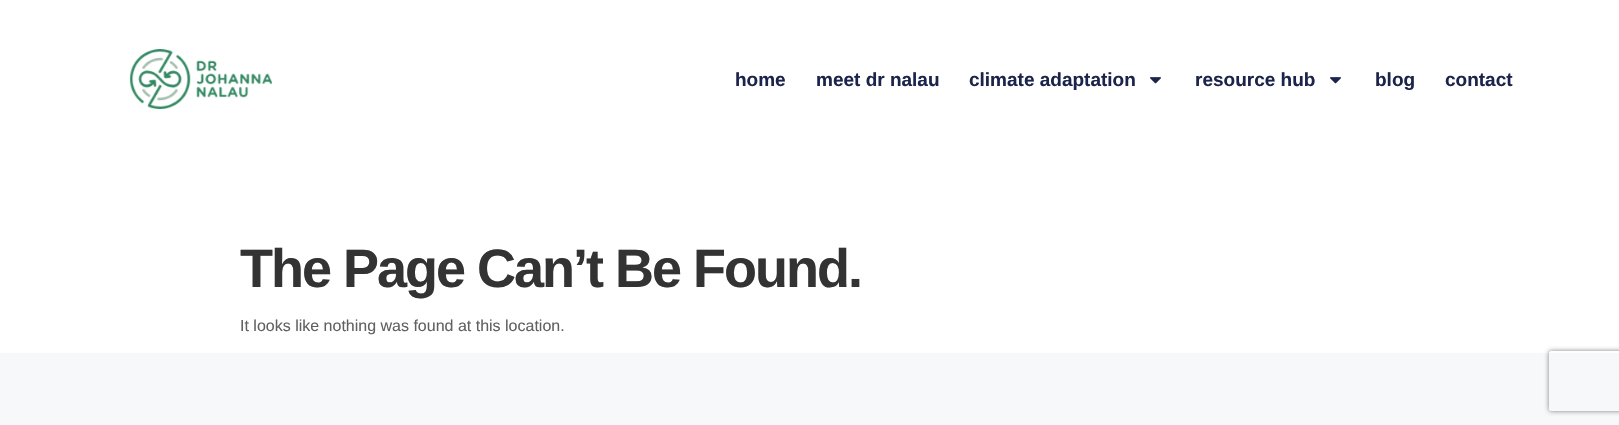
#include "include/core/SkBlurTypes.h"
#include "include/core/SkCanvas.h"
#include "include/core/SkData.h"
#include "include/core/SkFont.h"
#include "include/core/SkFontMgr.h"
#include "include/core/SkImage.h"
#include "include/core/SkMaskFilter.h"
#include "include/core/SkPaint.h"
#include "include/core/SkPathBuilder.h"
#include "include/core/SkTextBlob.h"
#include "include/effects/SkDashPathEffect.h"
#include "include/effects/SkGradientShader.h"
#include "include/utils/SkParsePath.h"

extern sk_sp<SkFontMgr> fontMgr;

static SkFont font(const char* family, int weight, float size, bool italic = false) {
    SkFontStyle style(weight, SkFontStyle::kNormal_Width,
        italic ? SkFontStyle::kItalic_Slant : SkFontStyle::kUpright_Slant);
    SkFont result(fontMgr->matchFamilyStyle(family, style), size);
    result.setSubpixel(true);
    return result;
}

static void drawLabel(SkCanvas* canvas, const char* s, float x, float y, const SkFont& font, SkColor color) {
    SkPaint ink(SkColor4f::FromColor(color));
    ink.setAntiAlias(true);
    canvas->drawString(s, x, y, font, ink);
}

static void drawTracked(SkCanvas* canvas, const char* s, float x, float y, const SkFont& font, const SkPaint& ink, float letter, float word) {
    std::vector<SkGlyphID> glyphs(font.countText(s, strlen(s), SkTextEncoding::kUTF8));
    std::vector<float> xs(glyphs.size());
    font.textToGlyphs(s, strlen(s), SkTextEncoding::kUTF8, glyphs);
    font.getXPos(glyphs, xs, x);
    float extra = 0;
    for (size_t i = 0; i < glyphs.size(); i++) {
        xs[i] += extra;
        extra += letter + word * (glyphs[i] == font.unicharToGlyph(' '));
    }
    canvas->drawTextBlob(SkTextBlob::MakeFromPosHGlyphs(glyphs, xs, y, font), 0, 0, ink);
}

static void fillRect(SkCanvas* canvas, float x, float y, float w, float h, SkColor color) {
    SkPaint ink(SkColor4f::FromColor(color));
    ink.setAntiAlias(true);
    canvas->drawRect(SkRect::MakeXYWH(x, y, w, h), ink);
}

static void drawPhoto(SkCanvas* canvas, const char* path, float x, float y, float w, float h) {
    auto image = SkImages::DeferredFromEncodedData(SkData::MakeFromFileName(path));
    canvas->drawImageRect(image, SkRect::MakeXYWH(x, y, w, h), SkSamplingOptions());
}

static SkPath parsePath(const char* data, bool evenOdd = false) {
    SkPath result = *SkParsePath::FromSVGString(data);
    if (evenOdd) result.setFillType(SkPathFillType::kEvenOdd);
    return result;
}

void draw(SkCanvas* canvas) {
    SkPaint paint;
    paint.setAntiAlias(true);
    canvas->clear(0xFFFFFFFF);
    drawPhoto(canvas, "assets/img1.png", 129, 49, 143, 60);
    SkFont font1 = font("Liberation Sans", 700, 19);
    drawLabel(canvas, "home", 735, 86, font1, 0xFF1C244B);
    drawLabel(canvas, "meet dr nalau", 816, 86, font1, 0xFF1C244B);
    drawLabel(canvas, "climate adaptation", 969, 86, font1, 0xFF1C244B);
    drawPhoto(canvas, "assets/img2.png", 1150, 77, 11, 7);
    drawLabel(canvas, "resource hub", 1195, 86, font1, 0xFF1C244B);
    drawPhoto(canvas, "assets/img2.png", 1330, 77, 11, 7);
    drawLabel(canvas, "blog", 1375, 86, font1, 0xFF1C244B);
    drawLabel(canvas, "contact", 1445, 86, font1, 0xFF1C244B);
    SkFont font2 = font("Liberation Sans", 700, 54);
    paint.setColor(0xFF333333);
    drawTracked(canvas, "The Page Can’t Be Found.", 240, 287, font2, paint, -2, 0);
    SkFont font3 = font("Liberation Sans", 400, 16);
    drawLabel(canvas, "It looks like nothing was found at this location.", 240, 331, font3, 0xFF606060);
    fillRect(canvas, 0, 353, 1619, 72, 0xFFF7F8F9);
    canvas->save();
    canvas->clipPath(parsePath("M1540 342H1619V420H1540ZM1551 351H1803C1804 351 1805 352 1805 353V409C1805 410 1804 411 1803 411H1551C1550 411 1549 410 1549 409V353C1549 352 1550 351 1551 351Z", true), true);
    paint.setColor(0xFF808080);
    paint.setMaskFilter(SkMaskFilter::MakeBlur(kNormal_SkBlurStyle, 2.5f));
    canvas->drawRoundRect(SkRect::MakeXYWH(1549, 351, 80, 60), 2, 2, paint);
    paint.setMaskFilter(nullptr);
    canvas->restore();
}
